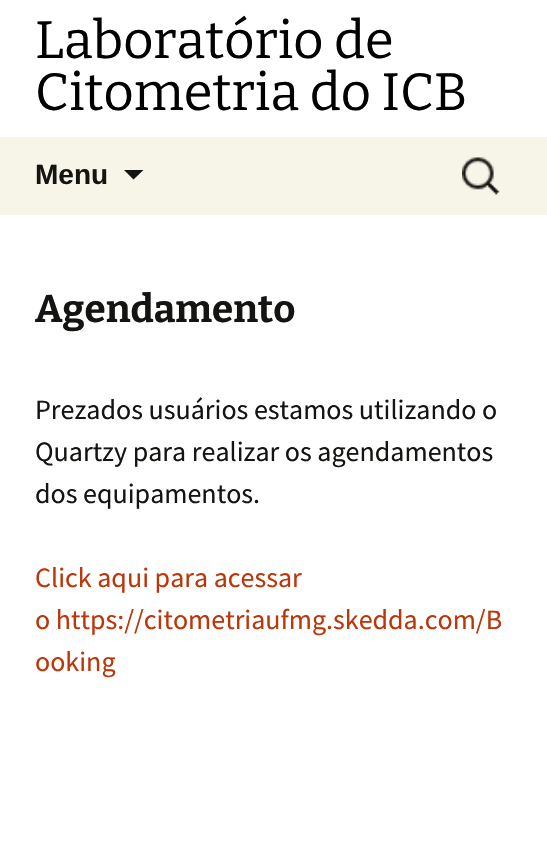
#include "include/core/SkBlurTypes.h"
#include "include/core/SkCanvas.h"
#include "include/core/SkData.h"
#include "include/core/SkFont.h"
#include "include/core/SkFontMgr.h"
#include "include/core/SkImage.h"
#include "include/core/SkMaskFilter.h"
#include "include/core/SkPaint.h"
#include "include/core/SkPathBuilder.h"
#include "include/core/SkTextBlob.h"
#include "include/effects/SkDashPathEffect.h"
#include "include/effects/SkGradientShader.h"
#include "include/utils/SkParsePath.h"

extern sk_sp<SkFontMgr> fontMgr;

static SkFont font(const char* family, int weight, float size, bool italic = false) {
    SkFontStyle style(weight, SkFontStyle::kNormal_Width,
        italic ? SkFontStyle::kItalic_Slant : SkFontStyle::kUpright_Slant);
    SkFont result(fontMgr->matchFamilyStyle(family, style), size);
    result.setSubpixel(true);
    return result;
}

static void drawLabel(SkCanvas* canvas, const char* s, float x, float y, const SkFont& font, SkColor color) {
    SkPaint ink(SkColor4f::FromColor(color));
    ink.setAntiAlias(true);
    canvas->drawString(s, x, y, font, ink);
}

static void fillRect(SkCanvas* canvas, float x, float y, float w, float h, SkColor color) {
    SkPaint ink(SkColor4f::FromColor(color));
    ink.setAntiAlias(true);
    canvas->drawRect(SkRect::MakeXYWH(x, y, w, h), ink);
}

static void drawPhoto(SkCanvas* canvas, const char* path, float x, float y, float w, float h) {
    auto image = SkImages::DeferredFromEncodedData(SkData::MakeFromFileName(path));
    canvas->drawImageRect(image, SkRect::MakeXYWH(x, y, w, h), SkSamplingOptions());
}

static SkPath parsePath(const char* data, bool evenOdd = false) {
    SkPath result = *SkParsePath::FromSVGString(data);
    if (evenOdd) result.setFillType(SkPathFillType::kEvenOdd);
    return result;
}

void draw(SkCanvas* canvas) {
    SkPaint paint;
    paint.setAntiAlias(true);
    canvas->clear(0xFFFFFFFF);
    SkFont font1 = font("Bitter", 400, 52.5f);
    drawLabel(canvas, "Laboratório de", 35, 58, font1, 0xFF000000);
    drawLabel(canvas, "Citometria do ICB", 35, 110, font1, 0xFF000000);
    fillRect(canvas, 0, 137, 547, 78, 0xFFF7F5E7);
    SkFont font2 = font("Liberation Sans", 700, 28);
    drawLabel(canvas, "Menu", 35, 184, font2, 0xFF141412);
    paint.setColor(0xFF141412);
    canvas->drawPath(parsePath("M124 170H143.5L133.5 179.5Z"), paint);
    drawPhoto(canvas, "assets/img1.png", 462, 157, 38, 38);
    SkFont font3 = font("Bitter", 700, 38.5f);
    drawLabel(canvas, "Agendamento", 35, 322, font3, 0xFF141412);
    SkFont font4 = font("Source Sans Pro", 400, 28);
    drawLabel(canvas, "Prezados usuários estamos utilizando o", 35, 419, font4, 0xFF141412);
    drawLabel(canvas, "Quartzy para realizar os agendamentos", 35, 461, font4, 0xFF141412);
    drawLabel(canvas, "dos equipamentos.", 35, 503, font4, 0xFF141412);
    drawLabel(canvas, "Click aqui para acessar", 35, 587, font4, 0xFFBC360A);
    drawLabel(canvas, "o https://citometriaufmg.skedda.com/B", 35, 629, font4, 0xFFBC360A);
    drawLabel(canvas, "ooking", 35, 671, font4, 0xFFBC360A);
}
